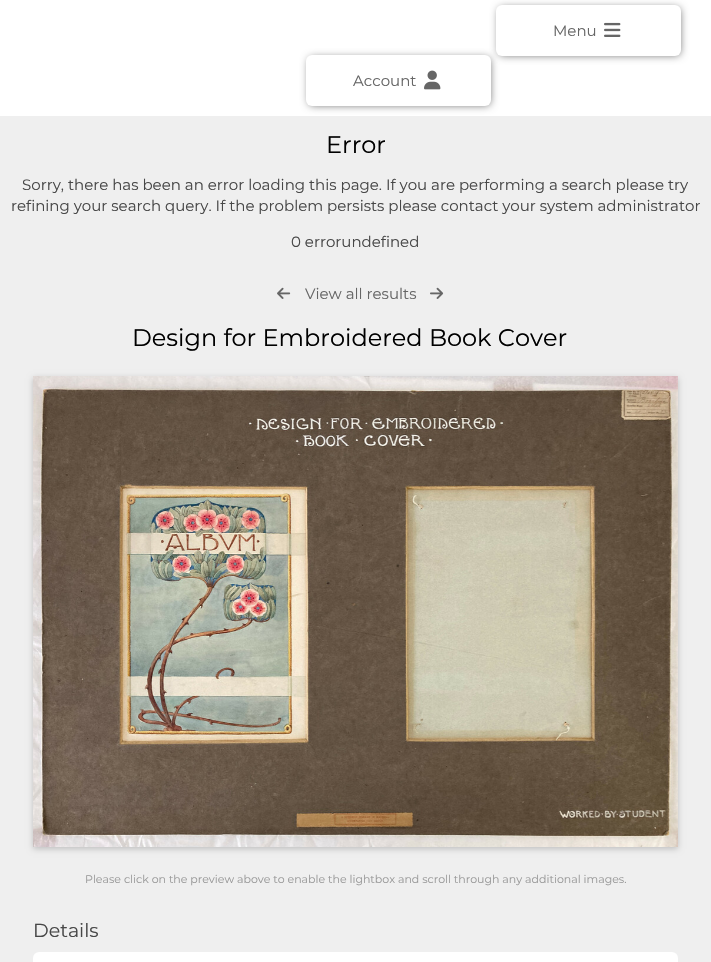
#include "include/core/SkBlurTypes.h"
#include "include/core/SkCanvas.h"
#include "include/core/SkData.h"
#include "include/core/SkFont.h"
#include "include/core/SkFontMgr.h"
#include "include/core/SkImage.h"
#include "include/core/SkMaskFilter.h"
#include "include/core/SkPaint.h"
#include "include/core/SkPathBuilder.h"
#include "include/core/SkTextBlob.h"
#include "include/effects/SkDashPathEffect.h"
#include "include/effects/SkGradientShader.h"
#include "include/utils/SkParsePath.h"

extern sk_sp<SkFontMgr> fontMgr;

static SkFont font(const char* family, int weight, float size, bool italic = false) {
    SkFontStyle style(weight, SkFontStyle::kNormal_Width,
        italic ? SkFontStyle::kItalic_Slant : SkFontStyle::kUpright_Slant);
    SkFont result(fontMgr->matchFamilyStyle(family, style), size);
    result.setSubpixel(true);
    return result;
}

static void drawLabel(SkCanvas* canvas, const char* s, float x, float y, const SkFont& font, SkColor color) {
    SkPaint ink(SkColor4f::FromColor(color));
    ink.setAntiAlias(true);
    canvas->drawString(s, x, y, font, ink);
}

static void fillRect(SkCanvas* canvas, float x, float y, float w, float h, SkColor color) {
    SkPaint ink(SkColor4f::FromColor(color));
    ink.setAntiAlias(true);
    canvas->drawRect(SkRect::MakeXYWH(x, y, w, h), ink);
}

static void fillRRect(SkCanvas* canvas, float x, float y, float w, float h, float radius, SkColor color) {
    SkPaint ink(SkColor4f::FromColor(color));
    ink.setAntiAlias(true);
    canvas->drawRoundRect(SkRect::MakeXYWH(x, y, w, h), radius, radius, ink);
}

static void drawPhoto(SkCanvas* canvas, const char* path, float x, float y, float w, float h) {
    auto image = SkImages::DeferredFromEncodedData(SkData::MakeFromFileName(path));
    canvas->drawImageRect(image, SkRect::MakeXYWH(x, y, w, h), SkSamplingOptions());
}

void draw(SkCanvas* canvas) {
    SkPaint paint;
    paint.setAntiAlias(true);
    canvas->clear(0xFFEFEFEF);
    fillRect(canvas, 0, 0, 711, 116, 0xFFFFFFFF);
    paint.setColor(0xFF666666);
    paint.setMaskFilter(SkMaskFilter::MakeBlur(kNormal_SkBlurStyle, 4));
    canvas->drawRoundRect(SkRect::MakeXYWH(499, 8, 181, 47), 4, 4, paint);
    paint.setMaskFilter(nullptr);
    fillRRect(canvas, 496, 5, 185, 51, 6, 0xFFFFFFFF);
    SkFont font1 = font("Montserrat", 400, 15);
    drawLabel(canvas, "Menu", 553, 36, font1, 0xFF666666);
    drawPhoto(canvas, "assets/img1.png", 604, 22, 17, 15);
    paint.setMaskFilter(SkMaskFilter::MakeBlur(kNormal_SkBlurStyle, 4));
    canvas->drawRoundRect(SkRect::MakeXYWH(309, 58, 181, 47), 4, 4, paint);
    paint.setMaskFilter(nullptr);
    fillRRect(canvas, 306, 55, 185, 51, 6, 0xFFFFFFFF);
    drawLabel(canvas, "Account", 353, 86, font1, 0xFF666666);
    drawPhoto(canvas, "assets/img2.png", 424, 70, 17, 20);
    SkFont font2 = font("Montserrat", 400, 24);
    drawLabel(canvas, "Error", 326, 153, font2, 0xFF000000);
    drawLabel(canvas, "Sorry, there has been an error loading this page. If you are performing a search please try", 22, 190, font1, 0xFF474747);
    drawLabel(canvas, "refining your search query. If the problem persists please contact your system administrator", 11, 211, font1, 0xFF474747);
    drawLabel(canvas, "0 errorundefined", 291, 247, font1, 0xFF474747);
    drawPhoto(canvas, "assets/img3.png", 277, 287, 14, 12);
    drawLabel(canvas, "View all results", 305, 299, font1, 0xFF666666);
    drawPhoto(canvas, "assets/img4.png", 430, 287, 14, 12);
    drawLabel(canvas, "Design for Embroidered Book Cover", 132, 346, font2, 0xFF000000);
    paint.setColor(0x33000000);
    paint.setMaskFilter(SkMaskFilter::MakeBlur(kNormal_SkBlurStyle, 3));
    canvas->drawRect(SkRect::MakeXYWH(33, 378, 645, 471), paint);
    paint.setMaskFilter(nullptr);
    drawPhoto(canvas, "assets/img5.png", 33, 376, 645, 471);
    SkFont font3 = font("Montserrat", 400, 11);
    drawLabel(canvas, "Please click on the preview above to enable the lightbox and scroll through any additional images.", 85, 883, font3, 0xFF999999);
    SkFont font4 = font("Montserrat", 400, 19);
    drawLabel(canvas, "Details", 33, 937, font4, 0xFF474747);
    fillRRect(canvas, 33, 952, 645, 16, 6, 0xFFFFFFFF);
}
